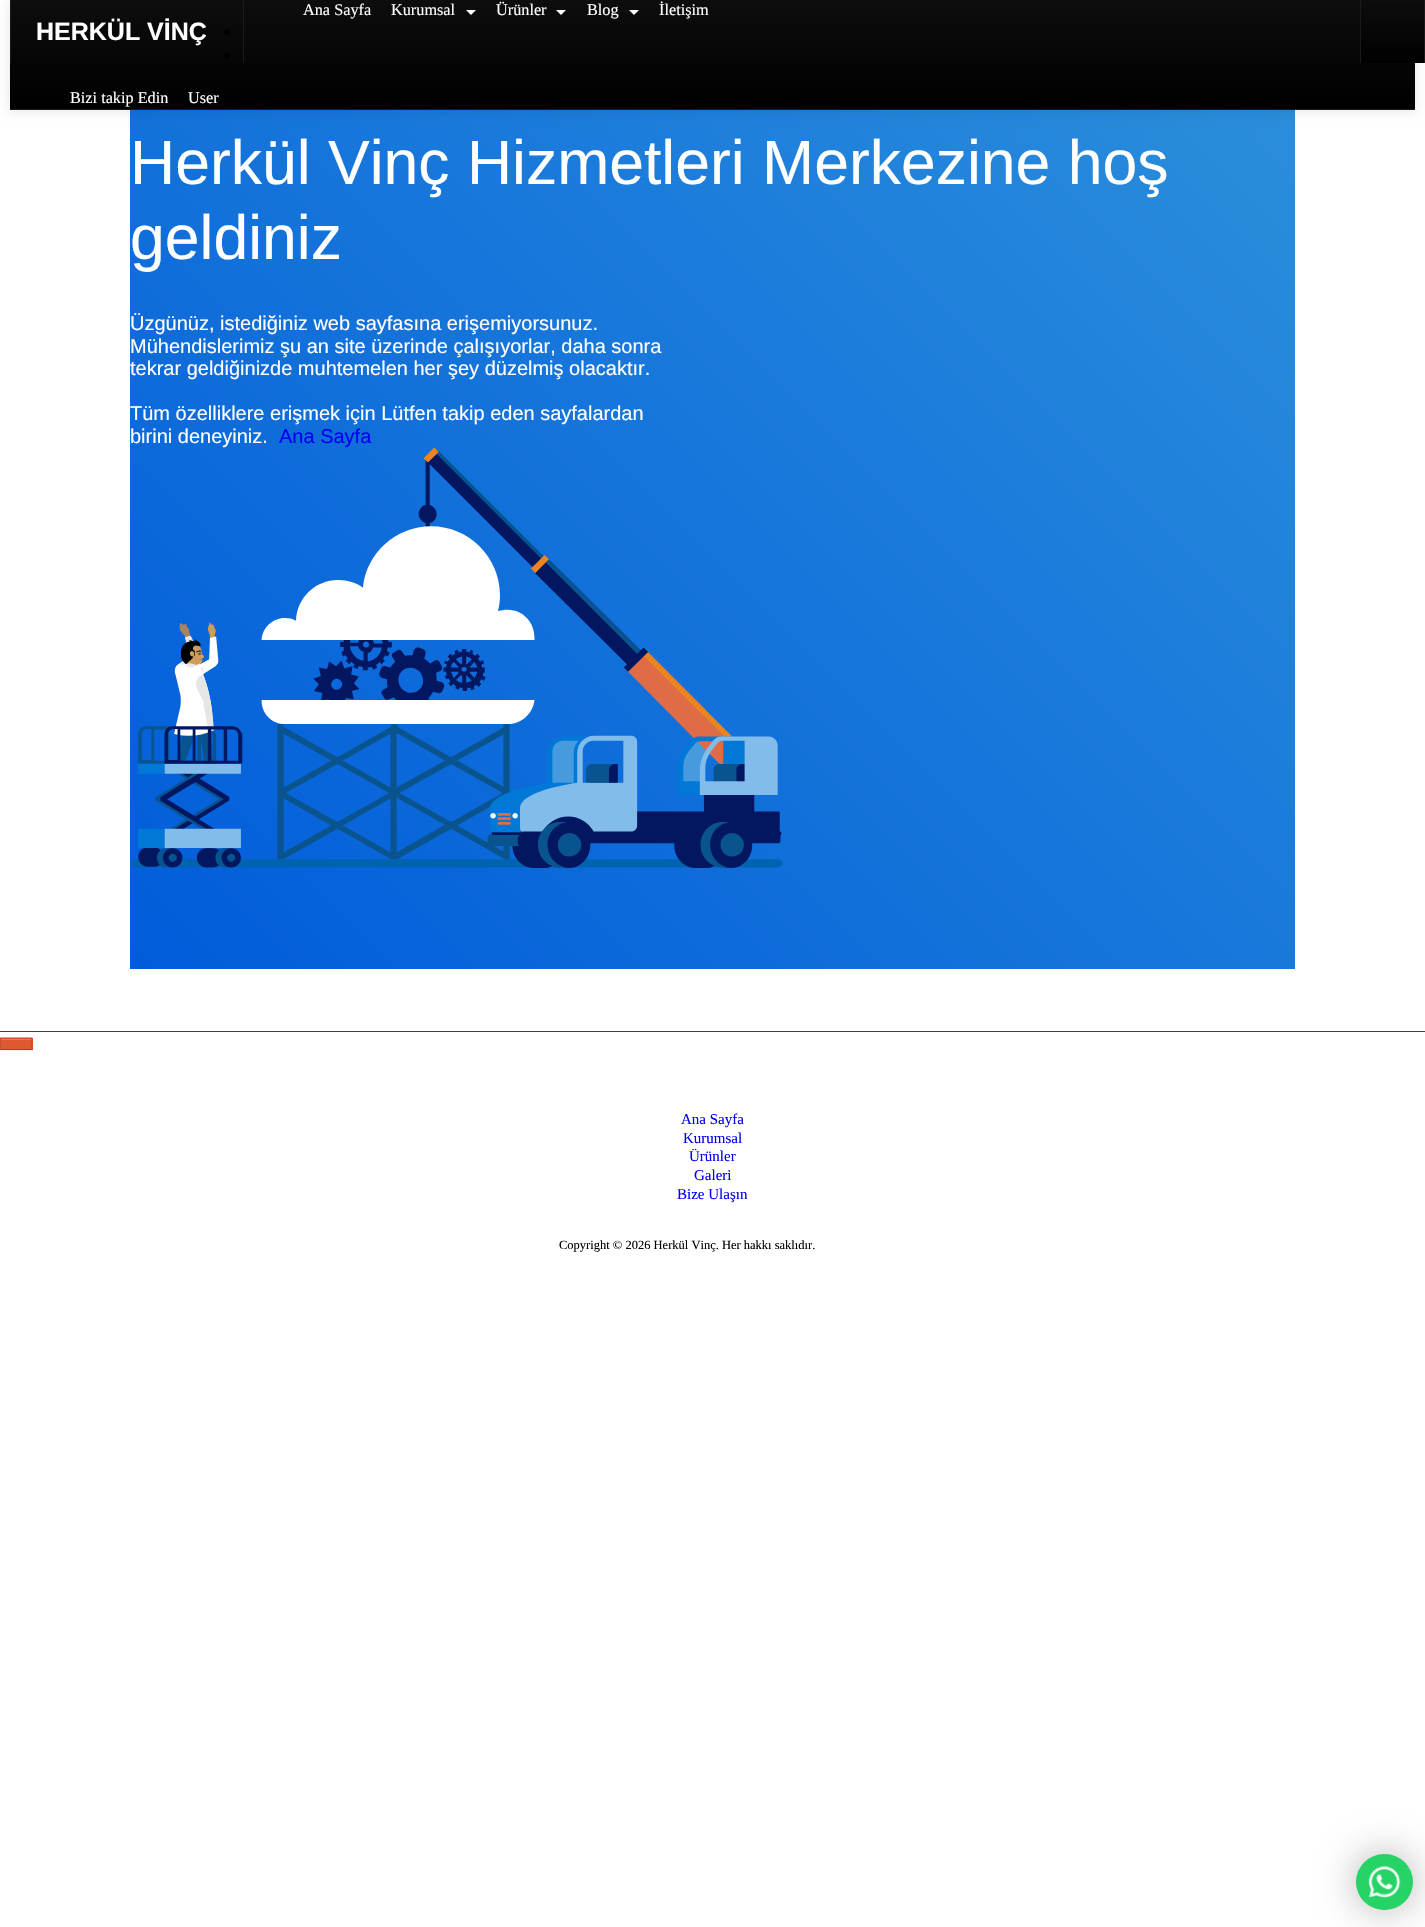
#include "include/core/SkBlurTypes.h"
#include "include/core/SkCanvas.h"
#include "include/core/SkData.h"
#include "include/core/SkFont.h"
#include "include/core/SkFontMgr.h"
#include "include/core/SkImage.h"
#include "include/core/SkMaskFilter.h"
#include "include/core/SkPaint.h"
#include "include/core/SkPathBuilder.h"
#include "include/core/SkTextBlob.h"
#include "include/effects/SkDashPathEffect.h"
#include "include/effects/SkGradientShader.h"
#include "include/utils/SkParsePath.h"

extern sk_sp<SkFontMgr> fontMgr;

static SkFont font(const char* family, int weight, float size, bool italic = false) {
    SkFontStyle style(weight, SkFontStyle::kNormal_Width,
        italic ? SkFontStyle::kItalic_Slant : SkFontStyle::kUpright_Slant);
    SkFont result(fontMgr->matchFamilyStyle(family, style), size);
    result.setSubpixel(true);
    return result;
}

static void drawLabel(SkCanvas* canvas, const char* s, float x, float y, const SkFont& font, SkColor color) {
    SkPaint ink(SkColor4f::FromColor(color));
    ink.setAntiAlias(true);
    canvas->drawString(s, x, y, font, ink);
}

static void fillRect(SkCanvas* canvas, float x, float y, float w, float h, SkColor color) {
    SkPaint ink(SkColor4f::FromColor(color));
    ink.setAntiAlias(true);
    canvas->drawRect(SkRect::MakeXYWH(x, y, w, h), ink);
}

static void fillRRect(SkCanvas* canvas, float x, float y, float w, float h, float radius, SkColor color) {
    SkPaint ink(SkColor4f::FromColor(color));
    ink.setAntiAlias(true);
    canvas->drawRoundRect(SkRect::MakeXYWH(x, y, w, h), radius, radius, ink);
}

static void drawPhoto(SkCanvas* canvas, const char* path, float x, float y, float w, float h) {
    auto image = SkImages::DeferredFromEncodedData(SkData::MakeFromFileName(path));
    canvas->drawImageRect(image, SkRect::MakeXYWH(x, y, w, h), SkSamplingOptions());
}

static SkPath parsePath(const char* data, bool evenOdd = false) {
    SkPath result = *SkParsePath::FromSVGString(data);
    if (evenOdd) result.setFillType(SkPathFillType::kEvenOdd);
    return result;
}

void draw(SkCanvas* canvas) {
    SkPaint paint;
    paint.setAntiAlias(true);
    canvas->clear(0xFFFFFFFF);
    {
        const SkColor colors[] = {0xFF015CDA, 0xFF2C8FDB};
        const float stops[] = {0, 1};
        const SkPoint ends[] = {{195, 1033}, {1230, -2.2f}};
        paint.setShader(SkGradientShader::MakeLinear(ends, colors, stops, 2, SkTileMode::kClamp));
        paint.setAlpha(255);
    }
    canvas->drawRect(SkRect::MakeXYWH(130, 110, 1165, 859), paint);
    paint.setShader(nullptr);
    paint.setColor(0x1A000000);
    paint.setMaskFilter(SkMaskFilter::MakeBlur(kNormal_SkBlurStyle, 6));
    canvas->drawRect(SkRect::MakeXYWH(10, 1, 1405, 110), paint);
    paint.setMaskFilter(nullptr);
    {
        const SkColor colors[] = {0xFF0D0D0D, 0xFF000000};
        const float stops[] = {0, 1};
        const SkPoint ends[] = {{713, 0}, {713, 109}};
        paint.setShader(SkGradientShader::MakeLinear(ends, colors, stops, 2, SkTileMode::kClamp));
        paint.setAlpha(255);
    }
    canvas->drawRect(SkRect::MakeXYWH(10, 0, 1405, 109), paint);
    fillRect(canvas, 10, 109, 1405, 1, 0xFF1A1A1A);
    SkFont font1 = font("Liberation Serif", 400, 16.25f);
    drawLabel(canvas, "Ana Sayfa", 303, 15, font1, 0xFFFFFFFF);
    drawLabel(canvas, "Kurumsal", 391, 15, font1, 0xFFFFFFFF);
    paint.setShader(nullptr);
    paint.setColor(0xFFFFFFFF);
    canvas->drawPath(parsePath("M466 10H476L471 15Z"), paint);
    drawLabel(canvas, "Ürünler", 496, 15, font1, 0xFFFFFFFF);
    canvas->drawPath(parsePath("M556 10H566L561 15Z"), paint);
    drawLabel(canvas, "Blog", 587, 15, font1, 0xFFFFFFFF);
    canvas->drawPath(parsePath("M629 10H639L634 15Z"), paint);
    drawLabel(canvas, "İletişim", 659, 15, font1, 0xFFFFFFFF);
    {
        const SkColor colors[] = {0xFF0D0D0D, 0xFF000000};
        const float stops[] = {0, 1};
        const SkPoint ends[] = {{1393, 0}, {1393, 63}};
        paint.setShader(SkGradientShader::MakeLinear(ends, colors, stops, 2, SkTileMode::kClamp));
        paint.setAlpha(255);
    }
    canvas->drawRect(SkRect::MakeXYWH(1361, 0, 63, 63), paint);
    fillRect(canvas, 1424, 0, 1, 63, 0xFF1A1A1A);
    fillRect(canvas, 1360, 0, 1, 63, 0xFF1A1A1A);
    fillRect(canvas, 243, 0, 1, 63, 0xFF1A1A1A);
    fillRect(canvas, 10, 0, 1, 63, 0xFF1A1A1A);
    SkFont font2 = font("Liberation Sans", 700, 25);
    drawLabel(canvas, "HERKÜL VİNÇ", 36, 40, font2, 0xFFFFFFFF);
    paint.setShader(nullptr);
    paint.setColor(0xFF000000);
    canvas->drawCircle(227, 32, 3, paint);
    canvas->drawCircle(227, 56, 3, paint);
    drawLabel(canvas, "Bizi takip Edin", 70, 103, font1, 0xFFFFFFFF);
    drawLabel(canvas, "User", 188, 103, font1, 0xFFFFFFFF);
    SkFont font3 = font("Liberation Sans", 400, 62.5f);
    drawLabel(canvas, "Herkül Vinç Hizmetleri Merkezine hoş", 130, 184, font3, 0xFFFFFFFF);
    drawLabel(canvas, "geldiniz", 130, 259, font3, 0xFFFFFFFF);
    SkFont font4 = font("Liberation Sans", 400, 20);
    drawLabel(canvas, "Üzgünüz, istediğiniz web sayfasına erişemiyorsunuz.", 130, 330, font4, 0xFFFFFFFF);
    drawLabel(canvas, "Mühendislerimiz şu an site üzerinde çalışıyorlar, daha sonra", 130, 353, font4, 0xFFFFFFFF);
    drawLabel(canvas, "tekrar geldiğinizde muhtemelen her şey düzelmiş olacaktır.", 130, 375, font4, 0xFFFFFFFF);
    drawLabel(canvas, "Tüm özelliklere erişmek için Lütfen takip eden sayfalardan", 130, 420, font4, 0xFFFFFFFF);
    drawLabel(canvas, "birini deneyiniz.", 130, 443, font4, 0xFFFFFFFF);
    drawLabel(canvas, "Ana Sayfa", 279, 443, font4, 0xFF0000EE);
    drawPhoto(canvas, "assets/img1.png", 130, 448, 653, 420);
    paint.setColor(0x0D000000);
    paint.setMaskFilter(SkMaskFilter::MakeBlur(kNormal_SkBlurStyle, 1));
    canvas->drawRect(SkRect::MakeXYWH(0, 1039, 33, 12), paint);
    paint.setMaskFilter(nullptr);
    fillRect(canvas, 0, 1038, 33, 12, 0xFFDE5932);
    fillRect(canvas, 1, 1039, 30, 1, 0xFFE57A5B);
    paint.setColor(0xFFC8502D);
    canvas->drawPath(parsePath("M0 1037.5H32.5L31 1039H1Z"), paint);
    paint.setColor(0x1A000000);
    canvas->drawPath(parsePath("M32.5 1037.5V1050L31 1049V1039Z"), paint);
    paint.setColor(0x40000000);
    canvas->drawPath(parsePath("M32.5 1050H0L1 1049H31Z"), paint);
    paint.setColor(0x1A000000);
    canvas->drawPath(parsePath("M0 1050V1037.5L1 1039V1049Z"), paint);
    fillRect(canvas, 0, 1031, 1425, 1, 0xFF404040);
    SkFont font5 = font("Liberation Serif", 400, 15);
    drawLabel(canvas, "Ana Sayfa", 681, 1124, font5, 0xFF0000EE);
    drawLabel(canvas, "Kurumsal", 683, 1143, font5, 0xFF0000EE);
    drawLabel(canvas, "Ürünler", 689, 1161, font5, 0xFF0000EE);
    drawLabel(canvas, "Galeri", 694, 1180, font5, 0xFF0000EE);
    drawLabel(canvas, "Bize Ulaşın", 677, 1199, font5, 0xFF0000EE);
    SkFont font6 = font("Liberation Serif", 400, 12.5f);
    drawLabel(canvas, "Copyright © 2026 Herkül Vinç. Her hakkı saklıdır.", 559, 1249, font6, 0xFF000000);
    paint.setColor(0x4D000000);
    paint.setMaskFilter(SkMaskFilter::MakeBlur(kNormal_SkBlurStyle, 19));
    canvas->drawRoundRect(SkRect::MakeXYWH(1356, 1854, 57, 56), 28, 28, paint);
    paint.setMaskFilter(nullptr);
    fillRRect(canvas, 1356, 1854, 57, 56, 28, 0xFF25D366);
    drawPhoto(canvas, "assets/img2.png", 1368, 1865, 33, 33);
}
